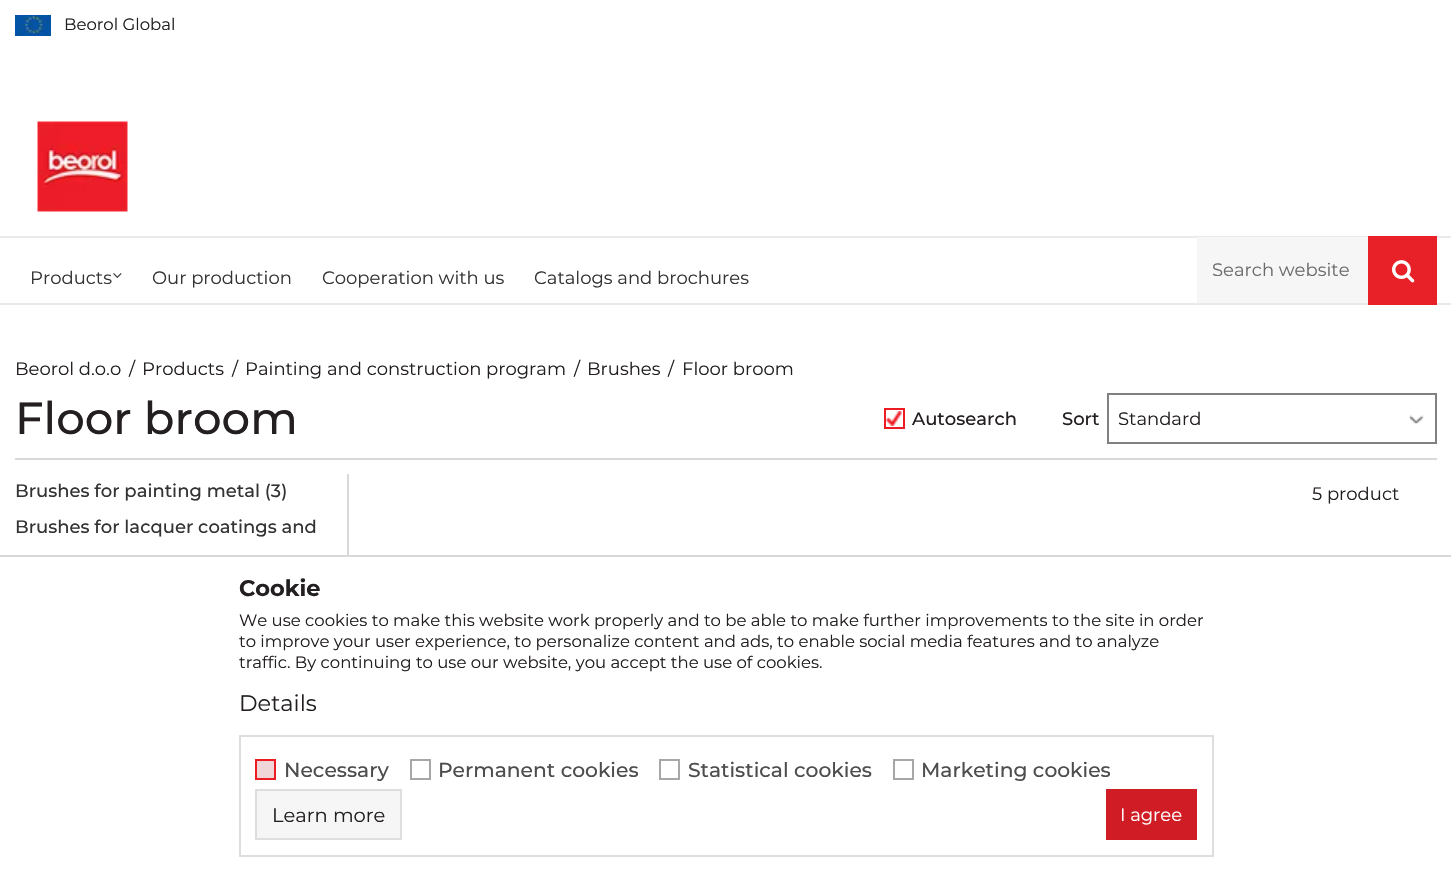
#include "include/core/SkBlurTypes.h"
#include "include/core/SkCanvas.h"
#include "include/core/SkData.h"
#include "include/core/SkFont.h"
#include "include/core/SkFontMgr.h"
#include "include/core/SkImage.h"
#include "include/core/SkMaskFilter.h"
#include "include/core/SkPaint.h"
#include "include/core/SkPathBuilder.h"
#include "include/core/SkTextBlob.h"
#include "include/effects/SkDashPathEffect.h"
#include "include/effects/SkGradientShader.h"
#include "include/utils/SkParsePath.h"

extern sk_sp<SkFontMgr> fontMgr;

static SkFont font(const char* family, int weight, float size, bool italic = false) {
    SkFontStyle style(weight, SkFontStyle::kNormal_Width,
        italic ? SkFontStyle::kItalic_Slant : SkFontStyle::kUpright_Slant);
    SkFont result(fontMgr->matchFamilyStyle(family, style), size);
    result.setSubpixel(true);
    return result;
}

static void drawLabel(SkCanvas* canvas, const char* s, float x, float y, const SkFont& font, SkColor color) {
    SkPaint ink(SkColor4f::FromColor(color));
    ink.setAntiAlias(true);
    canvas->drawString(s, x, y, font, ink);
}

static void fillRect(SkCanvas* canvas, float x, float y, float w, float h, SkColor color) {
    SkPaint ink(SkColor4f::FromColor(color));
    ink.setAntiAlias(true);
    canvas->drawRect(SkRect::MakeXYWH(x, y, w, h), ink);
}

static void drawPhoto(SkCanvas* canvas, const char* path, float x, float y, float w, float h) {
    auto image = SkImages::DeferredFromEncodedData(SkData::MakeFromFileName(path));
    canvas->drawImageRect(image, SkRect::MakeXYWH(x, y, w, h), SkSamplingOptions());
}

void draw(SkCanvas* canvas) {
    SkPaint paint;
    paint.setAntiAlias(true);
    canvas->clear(0xFFFFFFFF);
    drawPhoto(canvas, "assets/img1.png", 15, 15, 36, 21);
    SkFont font1 = font("Montserrat", 400, 16.5f);
    drawLabel(canvas, "Beorol Global", 64, 30, font1, 0xFF231F20);
    drawPhoto(canvas, "assets/img2.png", 37, 121, 91, 91);
    fillRect(canvas, 0, 236, 1451, 2, 0xFFEAEAEA);
    fillRect(canvas, 0, 303, 1451, 2, 0xFFEAEAEA);
    SkFont font2 = font("Montserrat", 400, 18);
    drawLabel(canvas, "Products", 30, 284, font2, 0xFF333333);
    drawPhoto(canvas, "assets/img3.png", 113, 273, 9, 5);
    drawLabel(canvas, "Our production", 152, 284, font2, 0xFF333333);
    drawLabel(canvas, "Cooperation with us", 322, 284, font2, 0xFF333333);
    drawLabel(canvas, "Catalogs and brochures", 534, 284, font2, 0xFF333333);
    fillRect(canvas, 1197, 237, 171, 66, 0xFFF6F6F6);
    drawLabel(canvas, "Search website", 1212, 276, font2, 0xFF6B6B6B);
    fillRect(canvas, 1368, 236, 69, 69, 0xFFE82128);
    drawPhoto(canvas, "assets/img4.png", 1392, 260, 23, 23);
    drawLabel(canvas, "Beorol d.o.o", 15, 375, font2, 0xFF231F20);
    drawLabel(canvas, "/", 129, 375, font2, 0xFF231F20);
    drawLabel(canvas, "Products", 142, 375, font2, 0xFF231F20);
    drawLabel(canvas, "/", 232, 375, font2, 0xFF231F20);
    drawLabel(canvas, "Painting and construction program", 245, 375, font2, 0xFF231F20);
    drawLabel(canvas, "/", 574, 375, font2, 0xFF231F20);
    drawLabel(canvas, "Brushes", 587, 375, font2, 0xFF231F20);
    drawLabel(canvas, "/", 668, 375, font2, 0xFF231F20);
    drawLabel(canvas, "Floor broom", 682, 375, font2, 0xFF231F20);
    fillRect(canvas, 15, 458, 1422, 2, 0xFFD9D9D9);
    SkFont font3 = font("Montserrat", 500, 45);
    drawLabel(canvas, "Floor broom", 15, 434, font3, 0xFF231F20);
    drawPhoto(canvas, "assets/img5.png", 886, 411, 16, 15);
    paint.setStroke(true);
    paint.setStrokeWidth(2);
    paint.setColor(0xFFED1C24);
    canvas->drawRect(SkRect::MakeXYWH(885, 409, 19, 19), paint);
    SkFont font4 = font("Montserrat", 500, 18);
    drawLabel(canvas, "Autosearch", 912, 425, font4, 0xFF231F20);
    drawLabel(canvas, "Sort", 1062, 425, font4, 0xFF231F20);
    drawPhoto(canvas, "assets/img6.png", 1409, 415, 15, 9);
    paint.setColor(0xFF808080);
    canvas->drawRect(SkRect::MakeXYWH(1108, 394, 328, 49), paint);
    drawLabel(canvas, "Standard", 1118, 425, font2, 0xFF231F20);
    fillRect(canvas, 347, 474, 2, 81, 0xFFD9D9D9);
    drawLabel(canvas, "Brushes for painting metal (3)", 15, 497, font4, 0xFF333333);
    drawLabel(canvas, "Brushes for lacquer coatings and", 15, 533, font4, 0xFF333333);
    drawLabel(canvas, "5 product", 1312, 500, font2, 0xFF231F20);
    paint.setColor(0xFFD9D9D9);
    canvas->drawRect(SkRect::MakeXYWH(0, 556, 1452, 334), paint);
    fillRect(canvas, 0, 557, 1, 332, 0xFFFFFFFF);
    SkFont font5 = font("Montserrat", 700, 22.5f);
    drawLabel(canvas, "Cookie", 239, 596, font5, 0xFF231F20);
    drawLabel(canvas, "We use cookies to make this website work properly and to be able to make further improvements to the site in order", 239, 626, font1, 0xFF231F20);
    drawLabel(canvas, "to improve your user experience, to personalize content and ads, to enable social media features and to analyze", 239, 647, font1, 0xFF231F20);
    drawLabel(canvas, "traffic. By continuing to use our website, you accept the use of cookies.", 239, 668, font1, 0xFF231F20);
    SkFont font6 = font("Montserrat", 400, 22.5f);
    drawLabel(canvas, "Details", 239, 711, font6, 0xFF231F20);
    paint.setColor(0xFFDEDEDE);
    canvas->drawRect(SkRect::MakeXYWH(240, 736, 973, 120), paint);
    paint.setStroke(false);
    paint.setColor(0xFFF0D6D6);
    canvas->drawRect(SkRect::MakeXYWH(256, 760, 19, 19), paint);
    paint.setStroke(true);
    paint.setColor(0xFFED1C24);
    canvas->drawRect(SkRect::MakeXYWH(256, 760, 19, 19), paint);
    SkFont font7 = font("Montserrat", 500, 20.25f);
    drawLabel(canvas, "Necessary", 284, 777, font7, 0xFF4D4D4D);
    paint.setColor(0xFFA7A7A7);
    canvas->drawRect(SkRect::MakeXYWH(411, 760, 19, 19), paint);
    drawLabel(canvas, "Permanent cookies", 438, 777, font7, 0xFF4D4D4D);
    canvas->drawRect(SkRect::MakeXYWH(660, 760, 19, 19), paint);
    drawLabel(canvas, "Statistical cookies", 688, 777, font7, 0xFF4D4D4D);
    canvas->drawRect(SkRect::MakeXYWH(894, 760, 19, 19), paint);
    drawLabel(canvas, "Marketing cookies", 921, 777, font7, 0xFF4D4D4D);
    paint.setStroke(false);
    paint.setColor(0xFFF6F6F6);
    canvas->drawRect(SkRect::MakeXYWH(256, 790, 145, 49), paint);
    paint.setStroke(true);
    paint.setColor(0xFFDEDEDE);
    canvas->drawRect(SkRect::MakeXYWH(256, 790, 145, 49), paint);
    SkFont font8 = font("Montserrat", 400, 19.5f);
    drawLabel(canvas, "Learn more", 272, 822, font8, 0xFF231F20);
    fillRect(canvas, 1106, 789, 91, 51, 0xFFD01C24);
    drawLabel(canvas, "I agree", 1120, 821, font2, 0xFFFFFFFF);
}
